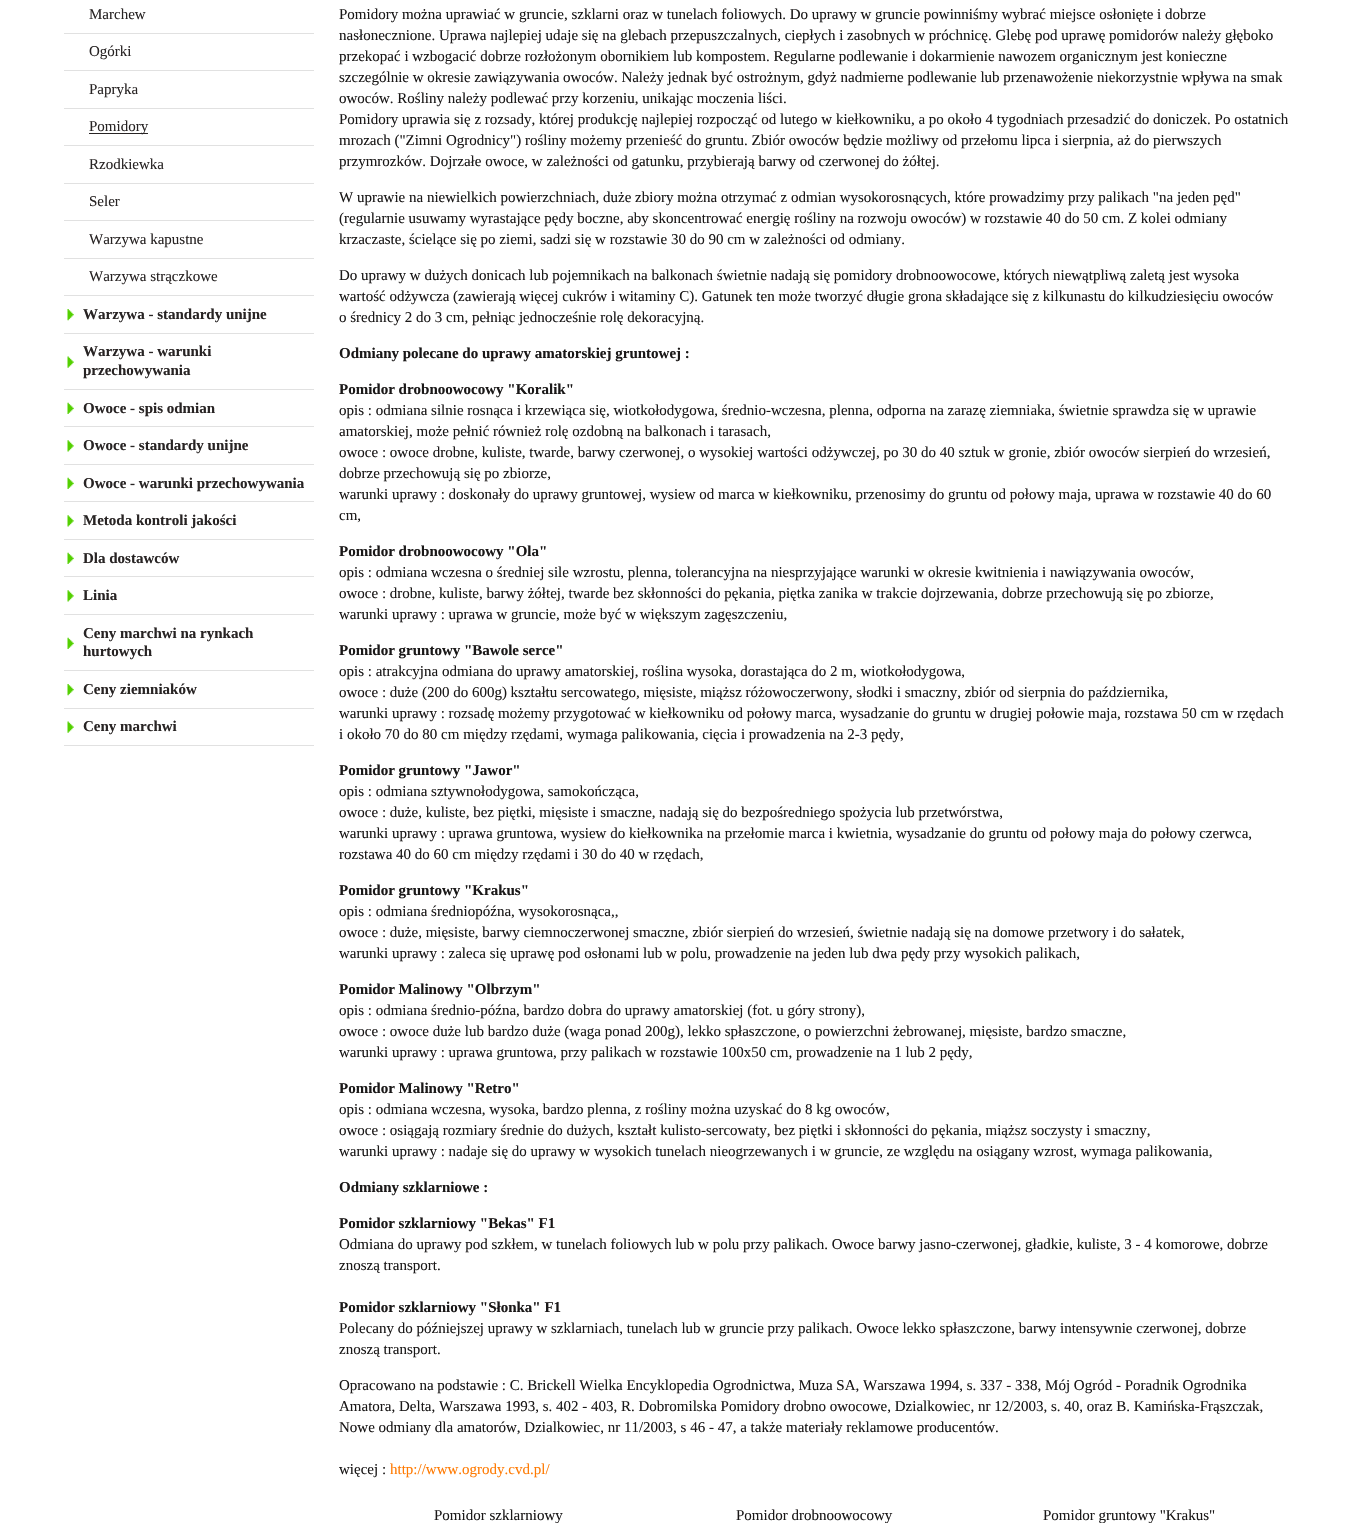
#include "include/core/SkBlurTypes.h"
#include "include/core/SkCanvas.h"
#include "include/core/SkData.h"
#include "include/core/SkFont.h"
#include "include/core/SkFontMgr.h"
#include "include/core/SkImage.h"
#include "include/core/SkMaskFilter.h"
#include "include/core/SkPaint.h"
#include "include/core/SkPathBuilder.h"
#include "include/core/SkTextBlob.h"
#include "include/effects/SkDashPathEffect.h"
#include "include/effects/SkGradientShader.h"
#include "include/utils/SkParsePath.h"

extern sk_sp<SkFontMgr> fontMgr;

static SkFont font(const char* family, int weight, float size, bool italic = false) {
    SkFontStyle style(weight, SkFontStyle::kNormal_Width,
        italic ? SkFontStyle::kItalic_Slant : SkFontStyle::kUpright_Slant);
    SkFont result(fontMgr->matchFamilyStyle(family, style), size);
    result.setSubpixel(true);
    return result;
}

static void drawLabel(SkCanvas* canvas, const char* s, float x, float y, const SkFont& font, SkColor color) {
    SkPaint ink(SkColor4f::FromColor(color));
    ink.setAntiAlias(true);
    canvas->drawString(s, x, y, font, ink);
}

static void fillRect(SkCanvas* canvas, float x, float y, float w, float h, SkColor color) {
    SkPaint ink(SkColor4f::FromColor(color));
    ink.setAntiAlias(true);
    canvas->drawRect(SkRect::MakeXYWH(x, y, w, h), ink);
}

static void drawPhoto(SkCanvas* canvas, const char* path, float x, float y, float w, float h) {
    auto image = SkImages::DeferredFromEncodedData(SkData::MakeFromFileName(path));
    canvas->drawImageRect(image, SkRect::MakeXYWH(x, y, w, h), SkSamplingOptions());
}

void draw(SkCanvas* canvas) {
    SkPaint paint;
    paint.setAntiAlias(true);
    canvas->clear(0xFFFFFFFF);
    fillRect(canvas, 64, 33, 250, 1, 0xFFE1E1E1);
    SkFont font1 = font("Liberation Serif", 400, 15);
    drawLabel(canvas, "Marchew", 89, 19, font1, 0xFF282424);
    fillRect(canvas, 64, 70, 250, 1, 0xFFE1E1E1);
    drawLabel(canvas, "Ogórki", 89, 56, font1, 0xFF282424);
    fillRect(canvas, 64, 108, 250, 1, 0xFFE1E1E1);
    drawLabel(canvas, "Papryka", 89, 94, font1, 0xFF282424);
    fillRect(canvas, 64, 145, 250, 1, 0xFFE1E1E1);
    fillRect(canvas, 89, 133, 59, 1, 0xFF282424);
    drawLabel(canvas, "Pomidory", 89, 131, font1, 0xFF282424);
    fillRect(canvas, 64, 183, 250, 1, 0xFFE1E1E1);
    drawLabel(canvas, "Rzodkiewka", 89, 169, font1, 0xFF282424);
    fillRect(canvas, 64, 220, 250, 1, 0xFFE1E1E1);
    drawLabel(canvas, "Seler", 89, 206, font1, 0xFF282424);
    fillRect(canvas, 64, 258, 250, 1, 0xFFE1E1E1);
    drawLabel(canvas, "Warzywa kapustne", 89, 244, font1, 0xFF282424);
    fillRect(canvas, 64, 295, 250, 1, 0xFFE1E1E1);
    drawLabel(canvas, "Warzywa strączkowe", 89, 281, font1, 0xFF282424);
    drawPhoto(canvas, "assets/img1.png", 67, 309, 7, 12);
    fillRect(canvas, 64, 333, 250, 1, 0xFFE1E1E1);
    SkFont font2 = font("Liberation Serif", 700, 15);
    drawLabel(canvas, "Warzywa - standardy unijne", 83, 319, font2, 0xFF282424);
    drawPhoto(canvas, "assets/img2.png", 67, 356, 7, 12);
    fillRect(canvas, 64, 389, 250, 1, 0xFFE1E1E1);
    drawLabel(canvas, "Warzywa - warunki", 83, 356, font2, 0xFF282424);
    drawLabel(canvas, "przechowywania", 83, 375, font2, 0xFF282424);
    drawPhoto(canvas, "assets/img3.png", 67, 402, 7, 12);
    fillRect(canvas, 64, 426, 250, 1, 0xFFE1E1E1);
    drawLabel(canvas, "Owoce - spis odmian", 83, 413, font2, 0xFF282424);
    drawPhoto(canvas, "assets/img4.png", 67, 440, 7, 12);
    fillRect(canvas, 64, 464, 250, 1, 0xFFE1E1E1);
    drawLabel(canvas, "Owoce - standardy unijne", 83, 450, font2, 0xFF282424);
    drawPhoto(canvas, "assets/img3.png", 67, 477, 7, 12);
    fillRect(canvas, 64, 501, 250, 1, 0xFFE1E1E1);
    drawLabel(canvas, "Owoce - warunki przechowywania", 83, 488, font2, 0xFF282424);
    drawPhoto(canvas, "assets/img4.png", 67, 515, 7, 12);
    fillRect(canvas, 64, 539, 250, 1, 0xFFE1E1E1);
    drawLabel(canvas, "Metoda kontroli jakości", 83, 525, font2, 0xFF282424);
    drawPhoto(canvas, "assets/img3.png", 67, 552, 7, 12);
    fillRect(canvas, 64, 576, 250, 1, 0xFFE1E1E1);
    drawLabel(canvas, "Dla dostawców", 83, 563, font2, 0xFF282424);
    drawPhoto(canvas, "assets/img4.png", 67, 590, 7, 12);
    fillRect(canvas, 64, 614, 250, 1, 0xFFE1E1E1);
    drawLabel(canvas, "Linia", 83, 600, font2, 0xFF282424);
    drawPhoto(canvas, "assets/img3.png", 67, 637, 7, 12);
    fillRect(canvas, 64, 670, 250, 1, 0xFFE1E1E1);
    drawLabel(canvas, "Ceny marchwi na rynkach", 83, 638, font2, 0xFF282424);
    drawLabel(canvas, "hurtowych", 83, 656, font2, 0xFF282424);
    drawPhoto(canvas, "assets/img1.png", 67, 684, 7, 12);
    fillRect(canvas, 64, 708, 250, 1, 0xFFE1E1E1);
    drawLabel(canvas, "Ceny ziemniaków", 83, 694, font2, 0xFF282424);
    drawPhoto(canvas, "assets/img2.png", 67, 721, 7, 12);
    fillRect(canvas, 64, 745, 250, 1, 0xFFE1E1E1);
    drawLabel(canvas, "Ceny marchwi", 83, 731, font2, 0xFF282424);
    drawLabel(canvas, "Pomidory można uprawiać w gruncie, szklarni oraz w tunelach foliowych. Do uprawy w gruncie powinniśmy wybrać miejsce osłonięte i dobrze", 339, 19, font1, 0xFF1A1818);
    drawLabel(canvas, "nasłonecznione. Uprawa najlepiej udaje się na glebach przepuszczalnych, ciepłych i zasobnych w próchnicę. Glebę pod uprawę pomidorów należy głęboko", 339, 40, font1, 0xFF1A1818);
    drawLabel(canvas, "przekopać i wzbogacić dobrze rozłożonym obornikiem lub kompostem. Regularne podlewanie i dokarmienie nawozem organicznym jest konieczne", 339, 61, font1, 0xFF1A1818);
    drawLabel(canvas, "szczególnie w okresie zawiązywania owoców. Należy jednak być ostrożnym, gdyż nadmierne podlewanie lub przenawożenie niekorzystnie wpływa na smak", 339, 82, font1, 0xFF1A1818);
    drawLabel(canvas, "owoców. Rośliny należy podlewać przy korzeniu, unikając moczenia liści.", 339, 103, font1, 0xFF1A1818);
    drawLabel(canvas, "Pomidory uprawia się z rozsady, której produkcję najlepiej rozpocząć od lutego w kiełkowniku, a po około 4 tygodniach przesadzić do doniczek. Po ostatnich", 339, 124, font1, 0xFF1A1818);
    drawLabel(canvas, "mrozach (\"Zimni Ogrodnicy\") rośliny możemy przenieść do gruntu. Zbiór owoców będzie możliwy od przełomu lipca i sierpnia, aż do pierwszych", 339, 145, font1, 0xFF1A1818);
    drawLabel(canvas, "przymrozków. Dojrzałe owoce, w zależności od gatunku, przybierają barwy od czerwonej do żółtej.", 339, 166, font1, 0xFF1A1818);
    drawLabel(canvas, "W uprawie na niewielkich powierzchniach, duże zbiory można otrzymać z odmian wysokorosnących, które prowadzimy przy palikach \"na jeden pęd\"", 339, 202, font1, 0xFF1A1818);
    drawLabel(canvas, "(regularnie usuwamy wyrastające pędy boczne, aby skoncentrować energię rośliny na rozwoju owoców) w rozstawie 40 do 50 cm. Z kolei odmiany", 339, 223, font1, 0xFF1A1818);
    drawLabel(canvas, "krzaczaste, ścielące się po ziemi, sadzi się w rozstawie 30 do 90 cm w zależności od odmiany.", 339, 244, font1, 0xFF1A1818);
    drawLabel(canvas, "Do uprawy w dużych donicach lub pojemnikach na balkonach świetnie nadają się pomidory drobnoowocowe, których niewątpliwą zaletą jest wysoka", 339, 280, font1, 0xFF1A1818);
    drawLabel(canvas, "wartość odżywcza (zawierają więcej cukrów i witaminy C). Gatunek ten może tworzyć długie grona składające się z kilkunastu do kilkudziesięciu owoców", 339, 301, font1, 0xFF1A1818);
    drawLabel(canvas, "o średnicy 2 do 3 cm, pełniąc jednocześnie rolę dekoracyjną.", 339, 322, font1, 0xFF1A1818);
    drawLabel(canvas, "Odmiany polecane do uprawy amatorskiej gruntowej :", 339, 358, font2, 0xFF1A1818);
    drawLabel(canvas, "Pomidor drobnoowocowy \"Koralik\"", 339, 394, font2, 0xFF1A1818);
    drawLabel(canvas, "opis : odmiana silnie rosnąca i krzewiąca się, wiotkołodygowa, średnio-wczesna, plenna, odporna na zarazę ziemniaka, świetnie sprawdza się w uprawie", 339, 415, font1, 0xFF1A1818);
    drawLabel(canvas, "amatorskiej, może pełnić również rolę ozdobną na balkonach i tarasach,", 339, 436, font1, 0xFF1A1818);
    drawLabel(canvas, "owoce : owoce drobne, kuliste, twarde, barwy czerwonej, o wysokiej wartości odżywczej, po 30 do 40 sztuk w gronie, zbiór owoców sierpień do wrzesień,", 339, 457, font1, 0xFF1A1818);
    drawLabel(canvas, "dobrze przechowują się po zbiorze,", 339, 478, font1, 0xFF1A1818);
    drawLabel(canvas, "warunki uprawy : doskonały do uprawy gruntowej, wysiew od marca w kiełkowniku, przenosimy do gruntu od połowy maja, uprawa w rozstawie 40 do 60", 339, 499, font1, 0xFF1A1818);
    drawLabel(canvas, "cm,", 339, 520, font1, 0xFF1A1818);
    drawLabel(canvas, "Pomidor drobnoowocowy \"Ola\"", 339, 556, font2, 0xFF1A1818);
    drawLabel(canvas, "opis : odmiana wczesna o średniej sile wzrostu, plenna, tolerancyjna na niesprzyjające warunki w okresie kwitnienia i nawiązywania owoców,", 339, 577, font1, 0xFF1A1818);
    drawLabel(canvas, "owoce : drobne, kuliste, barwy żółtej, twarde bez skłonności do pękania, piętka zanika w trakcie dojrzewania, dobrze przechowują się po zbiorze,", 339, 598, font1, 0xFF1A1818);
    drawLabel(canvas, "warunki uprawy : uprawa w gruncie, może być w większym zagęszczeniu,", 339, 619, font1, 0xFF1A1818);
    drawLabel(canvas, "Pomidor gruntowy \"Bawole serce\"", 339, 655, font2, 0xFF1A1818);
    drawLabel(canvas, "opis : atrakcyjna odmiana do uprawy amatorskiej, roślina wysoka, dorastająca do 2 m, wiotkołodygowa,", 339, 676, font1, 0xFF1A1818);
    drawLabel(canvas, "owoce : duże (200 do 600g) kształtu sercowatego, mięsiste, miąższ różowoczerwony, słodki i smaczny, zbiór od sierpnia do października,", 339, 697, font1, 0xFF1A1818);
    drawLabel(canvas, "warunki uprawy : rozsadę możemy przygotować w kiełkowniku od połowy marca, wysadzanie do gruntu w drugiej połowie maja, rozstawa 50 cm w rzędach", 339, 718, font1, 0xFF1A1818);
    drawLabel(canvas, "i około 70 do 80 cm między rzędami, wymaga palikowania, cięcia i prowadzenia na 2-3 pędy,", 339, 739, font1, 0xFF1A1818);
    drawLabel(canvas, "Pomidor gruntowy \"Jawor\"", 339, 775, font2, 0xFF1A1818);
    drawLabel(canvas, "opis : odmiana sztywnołodygowa, samokończąca,", 339, 796, font1, 0xFF1A1818);
    drawLabel(canvas, "owoce : duże, kuliste, bez piętki, mięsiste i smaczne, nadają się do bezpośredniego spożycia lub przetwórstwa,", 339, 817, font1, 0xFF1A1818);
    drawLabel(canvas, "warunki uprawy : uprawa gruntowa, wysiew do kiełkownika na przełomie marca i kwietnia, wysadzanie do gruntu od połowy maja do połowy czerwca,", 339, 838, font1, 0xFF1A1818);
    drawLabel(canvas, "rozstawa 40 do 60 cm między rzędami i 30 do 40 w rzędach,", 339, 859, font1, 0xFF1A1818);
    drawLabel(canvas, "Pomidor gruntowy \"Krakus\"", 339, 895, font2, 0xFF1A1818);
    drawLabel(canvas, "opis : odmiana średniopóźna, wysokorosnąca,,", 339, 916, font1, 0xFF1A1818);
    drawLabel(canvas, "owoce : duże, mięsiste, barwy ciemnoczerwonej smaczne, zbiór sierpień do wrzesień, świetnie nadają się na domowe przetwory i do sałatek,", 339, 937, font1, 0xFF1A1818);
    drawLabel(canvas, "warunki uprawy : zaleca się uprawę pod osłonami lub w polu, prowadzenie na jeden lub dwa pędy przy wysokich palikach,", 339, 958, font1, 0xFF1A1818);
    drawLabel(canvas, "Pomidor Malinowy \"Olbrzym\"", 339, 994, font2, 0xFF1A1818);
    drawLabel(canvas, "opis : odmiana średnio-późna, bardzo dobra do uprawy amatorskiej (fot. u góry strony),", 339, 1015, font1, 0xFF1A1818);
    drawLabel(canvas, "owoce : owoce duże lub bardzo duże (waga ponad 200g), lekko spłaszczone, o powierzchni żebrowanej, mięsiste, bardzo smaczne,", 339, 1036, font1, 0xFF1A1818);
    drawLabel(canvas, "warunki uprawy : uprawa gruntowa, przy palikach w rozstawie 100x50 cm, prowadzenie na 1 lub 2 pędy,", 339, 1057, font1, 0xFF1A1818);
    drawLabel(canvas, "Pomidor Malinowy \"Retro\"", 339, 1093, font2, 0xFF1A1818);
    drawLabel(canvas, "opis : odmiana wczesna, wysoka, bardzo plenna, z rośliny można uzyskać do 8 kg owoców,", 339, 1114, font1, 0xFF1A1818);
    drawLabel(canvas, "owoce : osiągają rozmiary średnie do dużych, kształt kulisto-sercowaty, bez piętki i skłonności do pękania, miąższ soczysty i smaczny,", 339, 1135, font1, 0xFF1A1818);
    drawLabel(canvas, "warunki uprawy : nadaje się do uprawy w wysokich tunelach nieogrzewanych i w gruncie, ze względu na osiągany wzrost, wymaga palikowania,", 339, 1156, font1, 0xFF1A1818);
    drawLabel(canvas, "Odmiany szklarniowe :", 339, 1192, font2, 0xFF1A1818);
    drawLabel(canvas, "Pomidor szklarniowy \"Bekas\" F1", 339, 1228, font2, 0xFF1A1818);
    drawLabel(canvas, "Odmiana do uprawy pod szkłem, w tunelach foliowych lub w polu przy palikach. Owoce barwy jasno-czerwonej, gładkie, kuliste, 3 - 4 komorowe, dobrze", 339, 1249, font1, 0xFF1A1818);
    drawLabel(canvas, "znoszą transport.", 339, 1270, font1, 0xFF1A1818);
    drawLabel(canvas, "Pomidor szklarniowy \"Słonka\" F1", 339, 1312, font2, 0xFF1A1818);
    drawLabel(canvas, "Polecany do późniejszej uprawy w szklarniach, tunelach lub w gruncie przy palikach. Owoce lekko spłaszczone, barwy intensywnie czerwonej, dobrze", 339, 1333, font1, 0xFF1A1818);
    drawLabel(canvas, "znoszą transport.", 339, 1354, font1, 0xFF1A1818);
    drawLabel(canvas, "Opracowano na podstawie : C. Brickell Wielka Encyklopedia Ogrodnictwa, Muza SA, Warszawa 1994, s. 337 - 338, Mój Ogród - Poradnik Ogrodnika", 339, 1390, font1, 0xFF1A1818);
    drawLabel(canvas, "Amatora, Delta, Warszawa 1993, s. 402 - 403, R. Dobromilska Pomidory drobno owocowe, Dzialkowiec, nr 12/2003, s. 40, oraz B. Kamińska-Frąszczak,", 339, 1411, font1, 0xFF1A1818);
    drawLabel(canvas, "Nowe odmiany dla amatorów, Dzialkowiec, nr 11/2003, s 46 - 47, a także materiały reklamowe producentów.", 339, 1432, font1, 0xFF1A1818);
    drawLabel(canvas, "więcej :", 339, 1474, font1, 0xFF1A1818);
    drawLabel(canvas, "http://www.ogrody.cvd.pl/", 390, 1474, font1, 0xFFFF7A01);
    drawLabel(canvas, "Pomidor szklarniowy", 434, 1520, font1, 0xFF1A1818);
    drawLabel(canvas, "Pomidor drobnoowocowy", 736, 1520, font1, 0xFF1A1818);
    drawLabel(canvas, "Pomidor gruntowy \"Krakus\"", 1043, 1520, font1, 0xFF1A1818);
}
